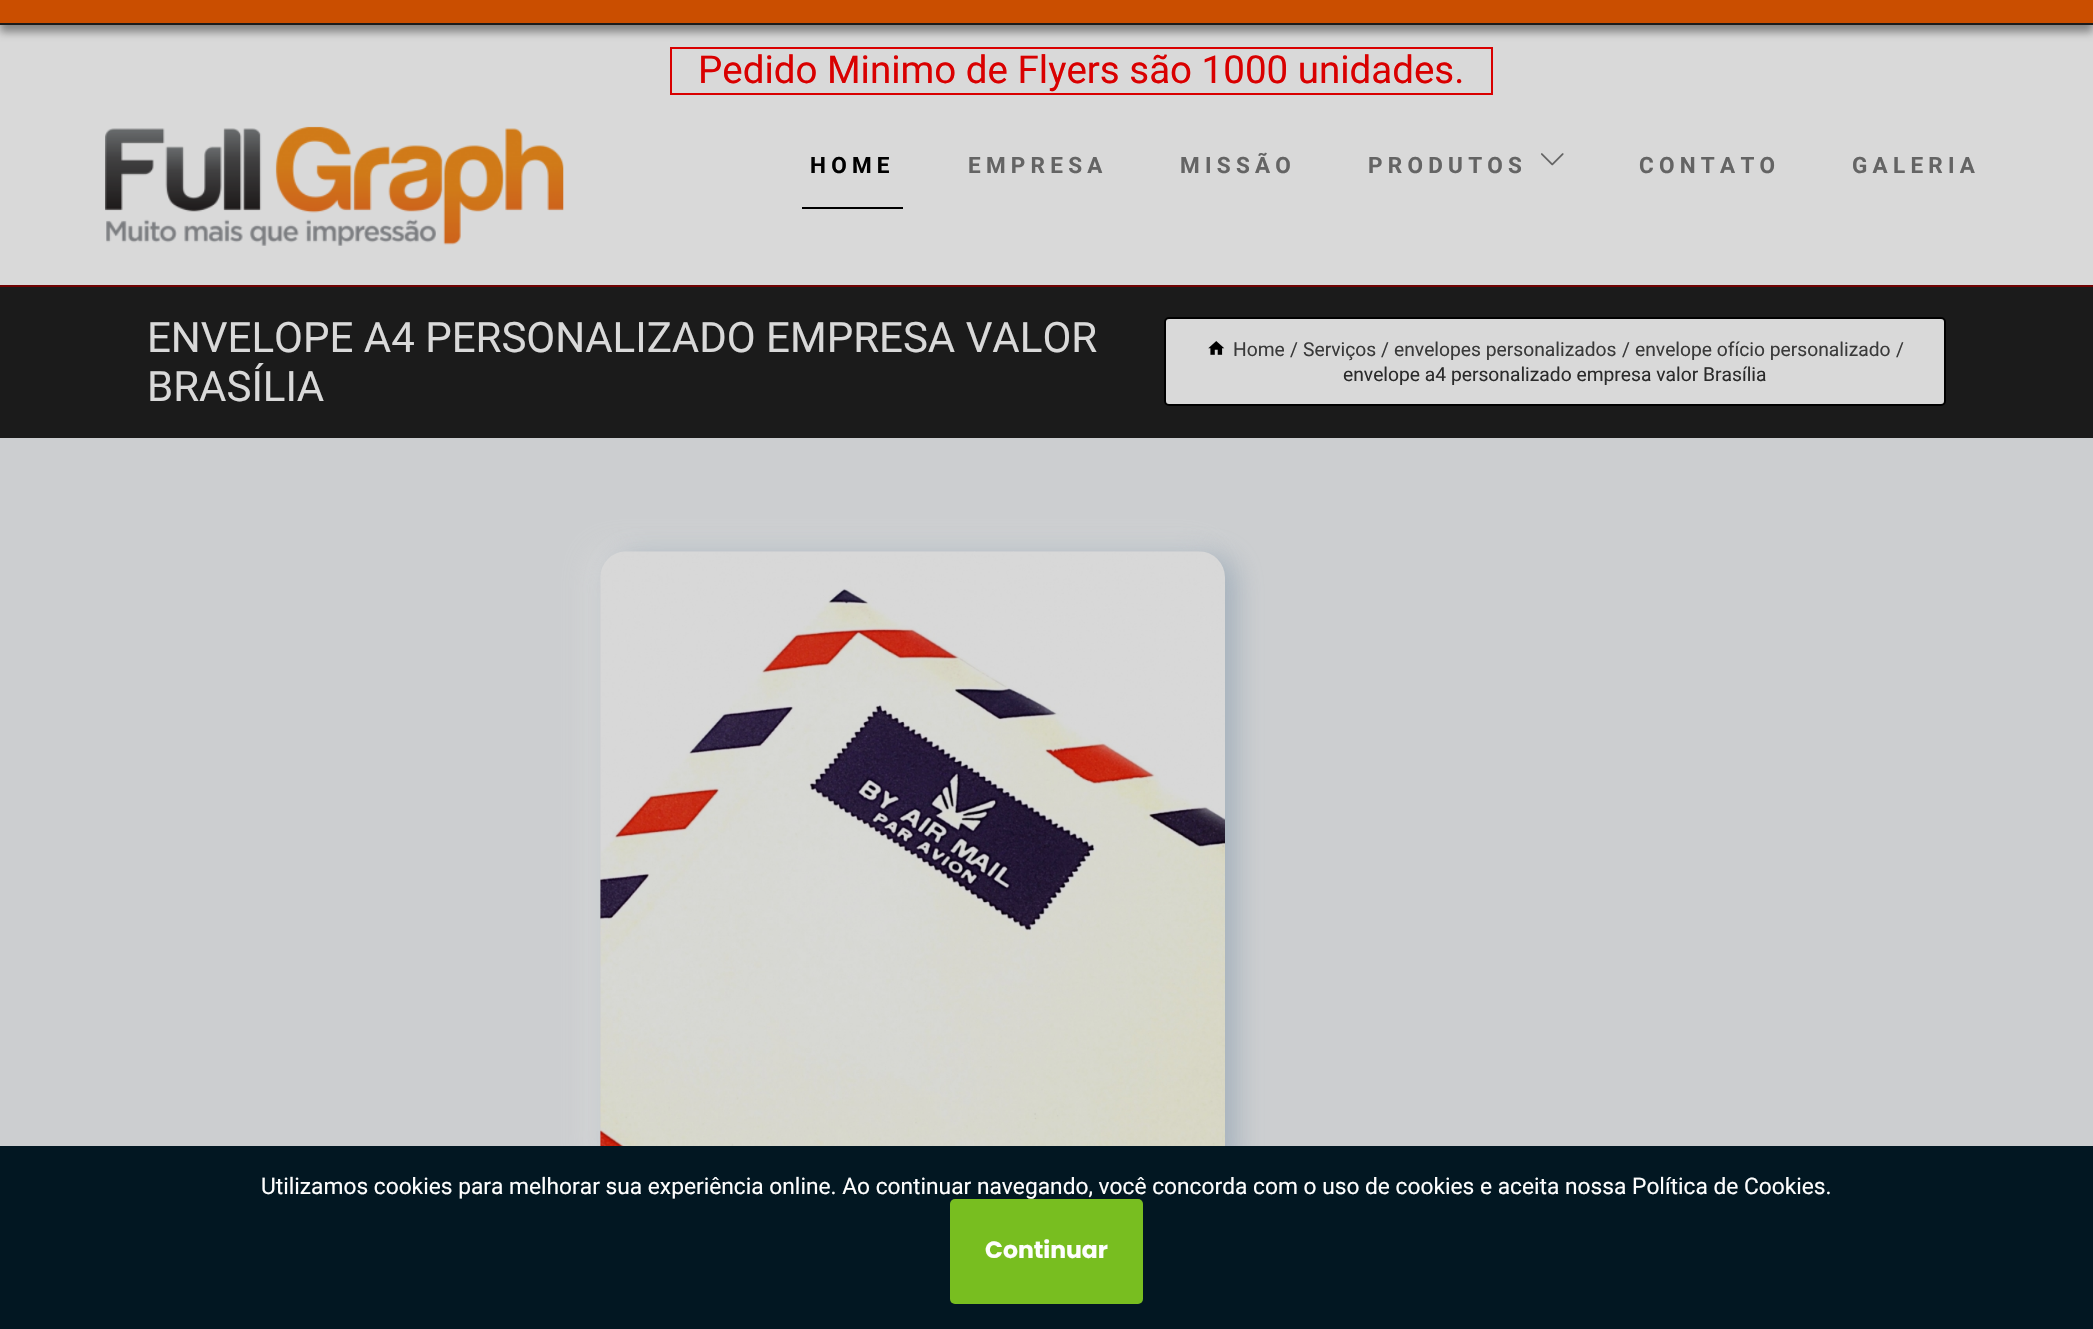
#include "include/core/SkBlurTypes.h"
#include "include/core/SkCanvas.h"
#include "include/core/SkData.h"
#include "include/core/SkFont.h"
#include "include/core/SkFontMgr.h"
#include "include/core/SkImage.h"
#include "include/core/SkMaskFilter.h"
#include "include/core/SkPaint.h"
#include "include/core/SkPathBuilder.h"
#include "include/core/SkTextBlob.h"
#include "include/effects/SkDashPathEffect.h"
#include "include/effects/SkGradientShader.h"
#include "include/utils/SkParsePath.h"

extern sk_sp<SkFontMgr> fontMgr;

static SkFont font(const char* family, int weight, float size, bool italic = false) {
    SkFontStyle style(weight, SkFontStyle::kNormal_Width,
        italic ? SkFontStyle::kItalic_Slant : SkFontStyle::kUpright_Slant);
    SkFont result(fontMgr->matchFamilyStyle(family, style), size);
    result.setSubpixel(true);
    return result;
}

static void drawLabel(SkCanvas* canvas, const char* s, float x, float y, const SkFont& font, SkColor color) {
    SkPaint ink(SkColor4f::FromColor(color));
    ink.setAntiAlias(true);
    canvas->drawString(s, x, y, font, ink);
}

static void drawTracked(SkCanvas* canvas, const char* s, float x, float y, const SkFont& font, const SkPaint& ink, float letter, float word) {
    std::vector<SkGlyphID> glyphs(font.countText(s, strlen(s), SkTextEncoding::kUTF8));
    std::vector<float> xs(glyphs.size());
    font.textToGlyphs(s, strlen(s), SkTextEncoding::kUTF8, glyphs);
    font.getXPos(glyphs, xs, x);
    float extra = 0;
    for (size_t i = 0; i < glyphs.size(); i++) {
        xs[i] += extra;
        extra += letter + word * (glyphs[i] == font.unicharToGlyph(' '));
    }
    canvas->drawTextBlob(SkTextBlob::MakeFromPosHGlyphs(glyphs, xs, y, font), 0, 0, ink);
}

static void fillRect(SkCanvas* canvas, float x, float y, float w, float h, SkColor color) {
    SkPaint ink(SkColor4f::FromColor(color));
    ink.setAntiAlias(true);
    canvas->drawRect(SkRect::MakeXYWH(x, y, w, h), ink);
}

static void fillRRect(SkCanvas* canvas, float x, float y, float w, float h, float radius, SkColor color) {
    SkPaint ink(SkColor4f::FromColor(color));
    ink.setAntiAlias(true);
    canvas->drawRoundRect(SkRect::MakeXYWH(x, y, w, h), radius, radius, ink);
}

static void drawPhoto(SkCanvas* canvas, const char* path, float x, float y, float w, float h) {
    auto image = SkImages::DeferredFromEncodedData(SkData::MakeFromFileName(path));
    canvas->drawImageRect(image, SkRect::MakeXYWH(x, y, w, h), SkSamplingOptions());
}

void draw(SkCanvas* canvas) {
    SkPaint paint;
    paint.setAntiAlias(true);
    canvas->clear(0xFFCCCED0);
    fillRect(canvas, 0, 25, 2093, 260, 0xFFD9D9D9);
    paint.setColor(0x66000000);
    paint.setMaskFilter(SkMaskFilter::MakeBlur(kNormal_SkBlurStyle, 4.5f));
    canvas->drawRect(SkRect::MakeXYWH(0, 7, 2093, 25), paint);
    paint.setMaskFilter(nullptr);
    fillRect(canvas, 0, 0, 2093, 23, 0xFFCA4E00);
    fillRect(canvas, 0, 23, 2093, 2, 0xFF1B1B1B);
    paint.setStroke(true);
    paint.setStrokeWidth(2);
    paint.setColor(0xFFD90000);
    canvas->drawRect(SkRect::MakeXYWH(671, 48, 821, 46), paint);
    SkFont font1 = font("Roboto", 400, 38.5f);
    drawLabel(canvas, "Pedido Minimo de Flyers são 1000 unidades.", 698, 83, font1, 0xFFD90000);
    drawPhoto(canvas, "assets/img1.png", 105, 126, 459, 120);
    SkFont font2 = font("Roboto", 700, 22.5f);
    paint.setStroke(false);
    paint.setColor(0xFF000000);
    drawTracked(canvas, "HOME", 810, 173, font2, paint, 5.25f, 0);
    fillRect(canvas, 802, 207, 101, 2, 0xFF000000);
    paint.setColor(0xFF646464);
    drawTracked(canvas, "EMPRESA", 968, 173, font2, paint, 5.25f, 0);
    drawTracked(canvas, "MISSÃO", 1180, 173, font2, paint, 5.25f, 0);
    drawTracked(canvas, "PRODUTOS", 1368, 173, font2, paint, 5.25f, 0);
    drawPhoto(canvas, "assets/img2.png", 1541, 153, 23, 13);
    drawTracked(canvas, "CONTATO", 1639, 173, font2, paint, 5.25f, 0);
    drawTracked(canvas, "GALERIA", 1852, 173, font2, paint, 5.25f, 0);
    fillRect(canvas, 0, 287, 2093, 151, 0xFF1B1B1B);
    fillRect(canvas, 0, 285, 2093, 2, 0xFF700202);
    SkFont font3 = font("Roboto", 400, 42);
    drawLabel(canvas, "ENVELOPE A4 PERSONALIZADO EMPRESA VALOR", 147, 352, font3, 0xFFD9D9D9);
    drawLabel(canvas, "BRASÍLIA", 147, 401, font3, 0xFFD9D9D9);
    paint.setColor(0xFFD9D9D9);
    canvas->drawRoundRect(SkRect::MakeXYWH(1165, 318, 780, 87), 4, 4, paint);
    paint.setStroke(true);
    paint.setColor(0xFF000000);
    canvas->drawRoundRect(SkRect::MakeXYWH(1165, 318, 780, 87), 4, 4, paint);
    drawPhoto(canvas, "assets/img3.png", 1208, 341, 17, 14);
    SkFont font4 = font("Roboto", 400, 19.25f);
    drawLabel(canvas, "Home", 1233, 356, font4, 0xFF3A3A3A);
    drawLabel(canvas, "/", 1290, 356, font4, 0xFF3A3A3A);
    drawLabel(canvas, "Serviços", 1303, 356, font4, 0xFF3A3A3A);
    drawLabel(canvas, "/", 1381, 356, font4, 0xFF3A3A3A);
    drawLabel(canvas, "envelopes personalizados", 1394, 356, font4, 0xFF3A3A3A);
    drawLabel(canvas, "/", 1622, 356, font4, 0xFF3A3A3A);
    drawLabel(canvas, "envelope ofício personalizado", 1635, 356, font4, 0xFF3A3A3A);
    drawLabel(canvas, "/", 1896, 356, font4, 0xFF3A3A3A);
    drawLabel(canvas, "envelope a4 personalizado empresa valor Brasília", 1343, 381, font4, 0xFF2B2B2B);
    paint.setStroke(false);
    paint.setColor(0xCCD9D9D9);
    paint.setMaskFilter(SkMaskFilter::MakeBlur(kNormal_SkBlurStyle, 14));
    canvas->drawRoundRect(SkRect::MakeXYWH(590, 548, 625, 628), 26, 26, paint);
    paint.setMaskFilter(nullptr);
    paint.setColor(0x7A748CA2);
    paint.setMaskFilter(SkMaskFilter::MakeBlur(kNormal_SkBlurStyle, 14));
    canvas->drawRoundRect(SkRect::MakeXYWH(611, 555, 625, 628), 26, 26, paint);
    paint.setMaskFilter(nullptr);
    drawPhoto(canvas, "assets/img4.png", 600, 551, 625, 595);
    fillRect(canvas, 0, 1146, 2093, 183, 0xFF021722);
    SkFont font5 = font("Roboto", 400, 22.75f);
    drawLabel(canvas, "Utilizamos cookies para melhorar sua experiência online. Ao continuar navegando, você concorda com o uso de cookies e aceita nossa Política de Cookies.", 261, 1194, font5, 0xFFFEFEFE);
    fillRRect(canvas, 950, 1199, 193, 105, 5, 0xFF78BE20);
    SkFont font6 = font("Poppins", 700, 23.5f);
    drawLabel(canvas, "Continuar", 985, 1258, font6, 0xFFFEFEFE);
}
